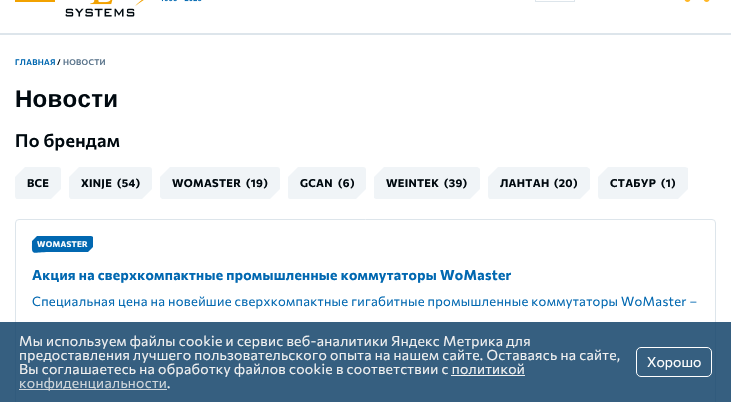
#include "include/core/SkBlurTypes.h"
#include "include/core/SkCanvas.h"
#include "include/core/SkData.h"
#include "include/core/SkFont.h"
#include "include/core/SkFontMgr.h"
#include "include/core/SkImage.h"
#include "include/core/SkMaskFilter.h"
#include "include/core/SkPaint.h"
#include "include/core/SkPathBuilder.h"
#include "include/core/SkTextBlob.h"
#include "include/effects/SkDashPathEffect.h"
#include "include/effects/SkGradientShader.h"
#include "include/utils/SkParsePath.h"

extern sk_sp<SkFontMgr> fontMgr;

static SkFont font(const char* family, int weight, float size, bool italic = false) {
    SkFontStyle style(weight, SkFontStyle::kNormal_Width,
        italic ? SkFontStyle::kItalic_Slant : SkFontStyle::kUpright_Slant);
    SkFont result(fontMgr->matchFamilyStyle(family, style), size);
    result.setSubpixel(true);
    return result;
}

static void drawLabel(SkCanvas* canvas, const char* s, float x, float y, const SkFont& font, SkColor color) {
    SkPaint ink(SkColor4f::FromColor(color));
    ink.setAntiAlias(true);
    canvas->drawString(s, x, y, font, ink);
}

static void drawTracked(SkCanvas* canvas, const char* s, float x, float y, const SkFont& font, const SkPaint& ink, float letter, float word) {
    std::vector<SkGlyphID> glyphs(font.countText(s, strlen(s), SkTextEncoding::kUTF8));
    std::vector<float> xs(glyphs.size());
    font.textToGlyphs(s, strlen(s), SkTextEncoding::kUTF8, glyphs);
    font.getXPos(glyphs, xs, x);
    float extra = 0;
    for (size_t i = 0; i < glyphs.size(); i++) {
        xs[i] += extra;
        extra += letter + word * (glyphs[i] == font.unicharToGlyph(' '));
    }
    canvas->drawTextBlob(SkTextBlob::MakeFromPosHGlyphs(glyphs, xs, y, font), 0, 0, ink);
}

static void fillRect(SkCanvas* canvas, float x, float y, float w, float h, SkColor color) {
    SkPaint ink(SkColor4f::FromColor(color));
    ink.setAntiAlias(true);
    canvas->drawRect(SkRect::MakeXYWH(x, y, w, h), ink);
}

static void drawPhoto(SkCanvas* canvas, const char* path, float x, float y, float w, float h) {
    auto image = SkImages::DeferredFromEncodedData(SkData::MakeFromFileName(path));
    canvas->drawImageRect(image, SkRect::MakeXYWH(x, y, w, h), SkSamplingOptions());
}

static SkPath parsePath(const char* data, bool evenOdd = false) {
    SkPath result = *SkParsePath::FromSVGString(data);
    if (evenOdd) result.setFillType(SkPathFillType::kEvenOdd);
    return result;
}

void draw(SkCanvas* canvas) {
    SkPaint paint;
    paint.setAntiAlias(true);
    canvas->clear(0xFFFFFFFF);
    fillRect(canvas, 0, 33, 731, 2, 0xFFDDE5EB);
    fillRect(canvas, 15, 0, 40, 2, 0xFFF2A200);
    drawPhoto(canvas, "assets/img1.png", 65, 0, 70, 17);
    drawPhoto(canvas, "assets/img2.png", 135, 0, 67, 6);
    drawPhoto(canvas, "assets/img3.png", 535, 0, 40, 2);
    drawPhoto(canvas, "assets/img4.png", 684, 0, 26, 2);
    SkFont font1 = font("Commissioner", 600, 8);
    paint.setColor(0xFF0168B1);
    drawTracked(canvas, "ГЛАВНАЯ", 15, 65, font1, paint, 0.28f, 0);
    paint.setColor(0xFF00090F);
    drawTracked(canvas, "/", 57, 65, font1, paint, 0.28f, 0);
    paint.setColor(0xFF5B758C);
    drawTracked(canvas, "НОВОСТИ", 63, 65, font1, paint, 0.28f, 0);
    SkFont font2 = font("Liberation Sans", 700, 24);
    paint.setColor(0xFF00090F);
    drawTracked(canvas, "Новости", 15, 107, font2, paint, 0.28f, 0);
    SkFont font3 = font("Commissioner", 600, 18);
    drawTracked(canvas, "По брендам", 15, 147, font3, paint, 0.28f, 0);
    paint.setColor(0xFFF0F4F7);
    canvas->drawPath(parsePath("M15 177V196C15 197 16 199 17 199H51L61 189V170C61 168 60 167 58 167H25Z"), paint);
    SkFont font4 = font("Commissioner", 700, 11);
    paint.setColor(0xFF00090F);
    drawTracked(canvas, "ВСЕ", 27, 187, font4, paint, 0.28f, 0);
    paint.setColor(0xFFF0F4F7);
    canvas->drawPath(parsePath("M69 177V197C70 198 70 199 71 199H142L152 189V170C152 168 151 167 149 167H79Z"), paint);
    paint.setColor(0xFF00090F);
    drawTracked(canvas, "XINJE", 81, 187, font4, paint, 0.28f, 0);
    drawTracked(canvas, "(54)", 117, 187, font4, paint, 0.28f, 0);
    paint.setColor(0xFFF0F4F7);
    canvas->drawPath(parsePath("M160 177V197L162 199H270L280 189V170C280 168 279 167 277 167H170Z"), paint);
    paint.setColor(0xFF00090F);
    drawTracked(canvas, "WOMASTER", 172, 187, font4, paint, 0.28f, 0);
    drawTracked(canvas, "(19)", 246, 187, font4, paint, 0.28f, 0);
    paint.setColor(0xFFF0F4F7);
    canvas->drawPath(parsePath("M288 177V197C288 198 289 199 290 199H356L366 189V170C366 168 365 167 363 167H298Z"), paint);
    paint.setColor(0xFF00090F);
    drawTracked(canvas, "GCAN", 300, 187, font4, paint, 0.28f, 0);
    drawTracked(canvas, "(6)", 338, 187, font4, paint, 0.28f, 0);
    paint.setColor(0xFFF0F4F7);
    canvas->drawPath(parsePath("M374 177V198L376 199H470L480 189V169C479 168 478 167 477 167H384Z"), paint);
    paint.setColor(0xFF00090F);
    drawTracked(canvas, "WEINTEK", 386, 187, font4, paint, 0.28f, 0);
    drawTracked(canvas, "(39)", 444, 187, font4, paint, 0.28f, 0);
    paint.setColor(0xFFF0F4F7);
    canvas->drawPath(parsePath("M590 169V189L580 199H490C489 199 488 197 488 196V177L498 167H587Z"), paint);
    paint.setColor(0xFF00090F);
    drawTracked(canvas, "ЛАНТАН", 500, 187, font4, paint, 0.28f, 0);
    drawTracked(canvas, "(20)", 554, 187, font4, paint, 0.28f, 0);
    paint.setColor(0xFFF0F4F7);
    canvas->drawPath(parsePath("M688 168V189L678 199H600C599 199 598 197 598 196V177L608 167H685Z"), paint);
    paint.setColor(0xFF00090F);
    drawTracked(canvas, "СТАБУР", 610, 187, font4, paint, 0.28f, 0);
    drawTracked(canvas, "(1)", 661, 187, font4, paint, 0.28f, 0);
    paint.setStroke(true);
    paint.setStrokeWidth(1);
    paint.setColor(0xFFDDE5EB);
    canvas->drawRoundRect(SkRect::MakeXYWH(15.5f, 219.5f, 700, 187), 3.5f, 3.5f, paint);
    paint.setStroke(false);
    paint.setColor(0xFF0168B1);
    canvas->drawPath(parsePath("M32 241C32 257 30 252 52 252H88L93 247V237C93 237 92 236 91 236H37Z"), paint);
    SkFont font5 = font("Commissioner", 700, 8);
    paint.setColor(0xFFFFFFFF);
    drawTracked(canvas, "WOMASTER", 37, 247, font5, paint, 0.28f, 0);
    SkFont font6 = font("Commissioner", 700, 14);
    paint.setColor(0xFF0168B1);
    drawTracked(canvas, "Акция на сверхкомпактные промышленные коммутаторы WoMaster", 32, 280, font6, paint, 0.28f, 0);
    SkFont font7 = font("Commissioner", 400, 13);
    drawTracked(canvas, "Специальная цена на новейшие сверхкомпактные гигабитные промышленные коммутаторы WoMaster –", 32, 306, font7, paint, 0.28f, 0);
    fillRect(canvas, 0, 322, 731, 80, 0xD40D3E66);
    SkFont font8 = font("Commissioner", 400, 14);
    paint.setColor(0xFFF1F1F1);
    drawTracked(canvas, "Мы используем файлы cookie и сервис веб-аналитики Яндекс Метрика для", 19, 346, font8, paint, 0.28f, 0);
    drawTracked(canvas, "предоставления лучшего пользовательского опыта на нашем сайте. Оставаясь на сайте,", 19, 360, font8, paint, 0.28f, 0);
    drawTracked(canvas, "Вы соглашаетесь на обработку файлов cookie в соответствии с политикой", 19, 374, font8, paint, 0.28f, 0);
    fillRect(canvas, 19, 389, 148, 1, 0xD4EEEEEE);
    paint.setColor(0xFFCFD6DB);
    drawTracked(canvas, "конфиденциальности", 19, 388, font8, paint, 0.28f, 0);
    fillRect(canvas, 451, 375, 74, 1, 0xFFF1F1F1);
    paint.setColor(0xFFF1F1F1);
    drawTracked(canvas, ".", 167, 388, font8, paint, 0.28f, 0);
    paint.setStroke(true);
    paint.setColor(0xFFFFFFFF);
    canvas->drawRoundRect(SkRect::MakeXYWH(636.5f, 347.5f, 75, 29), 4.5f, 4.5f, paint);
    drawLabel(canvas, "Хорошо", 647, 367, font8, 0xFFFFFFFF);
}
